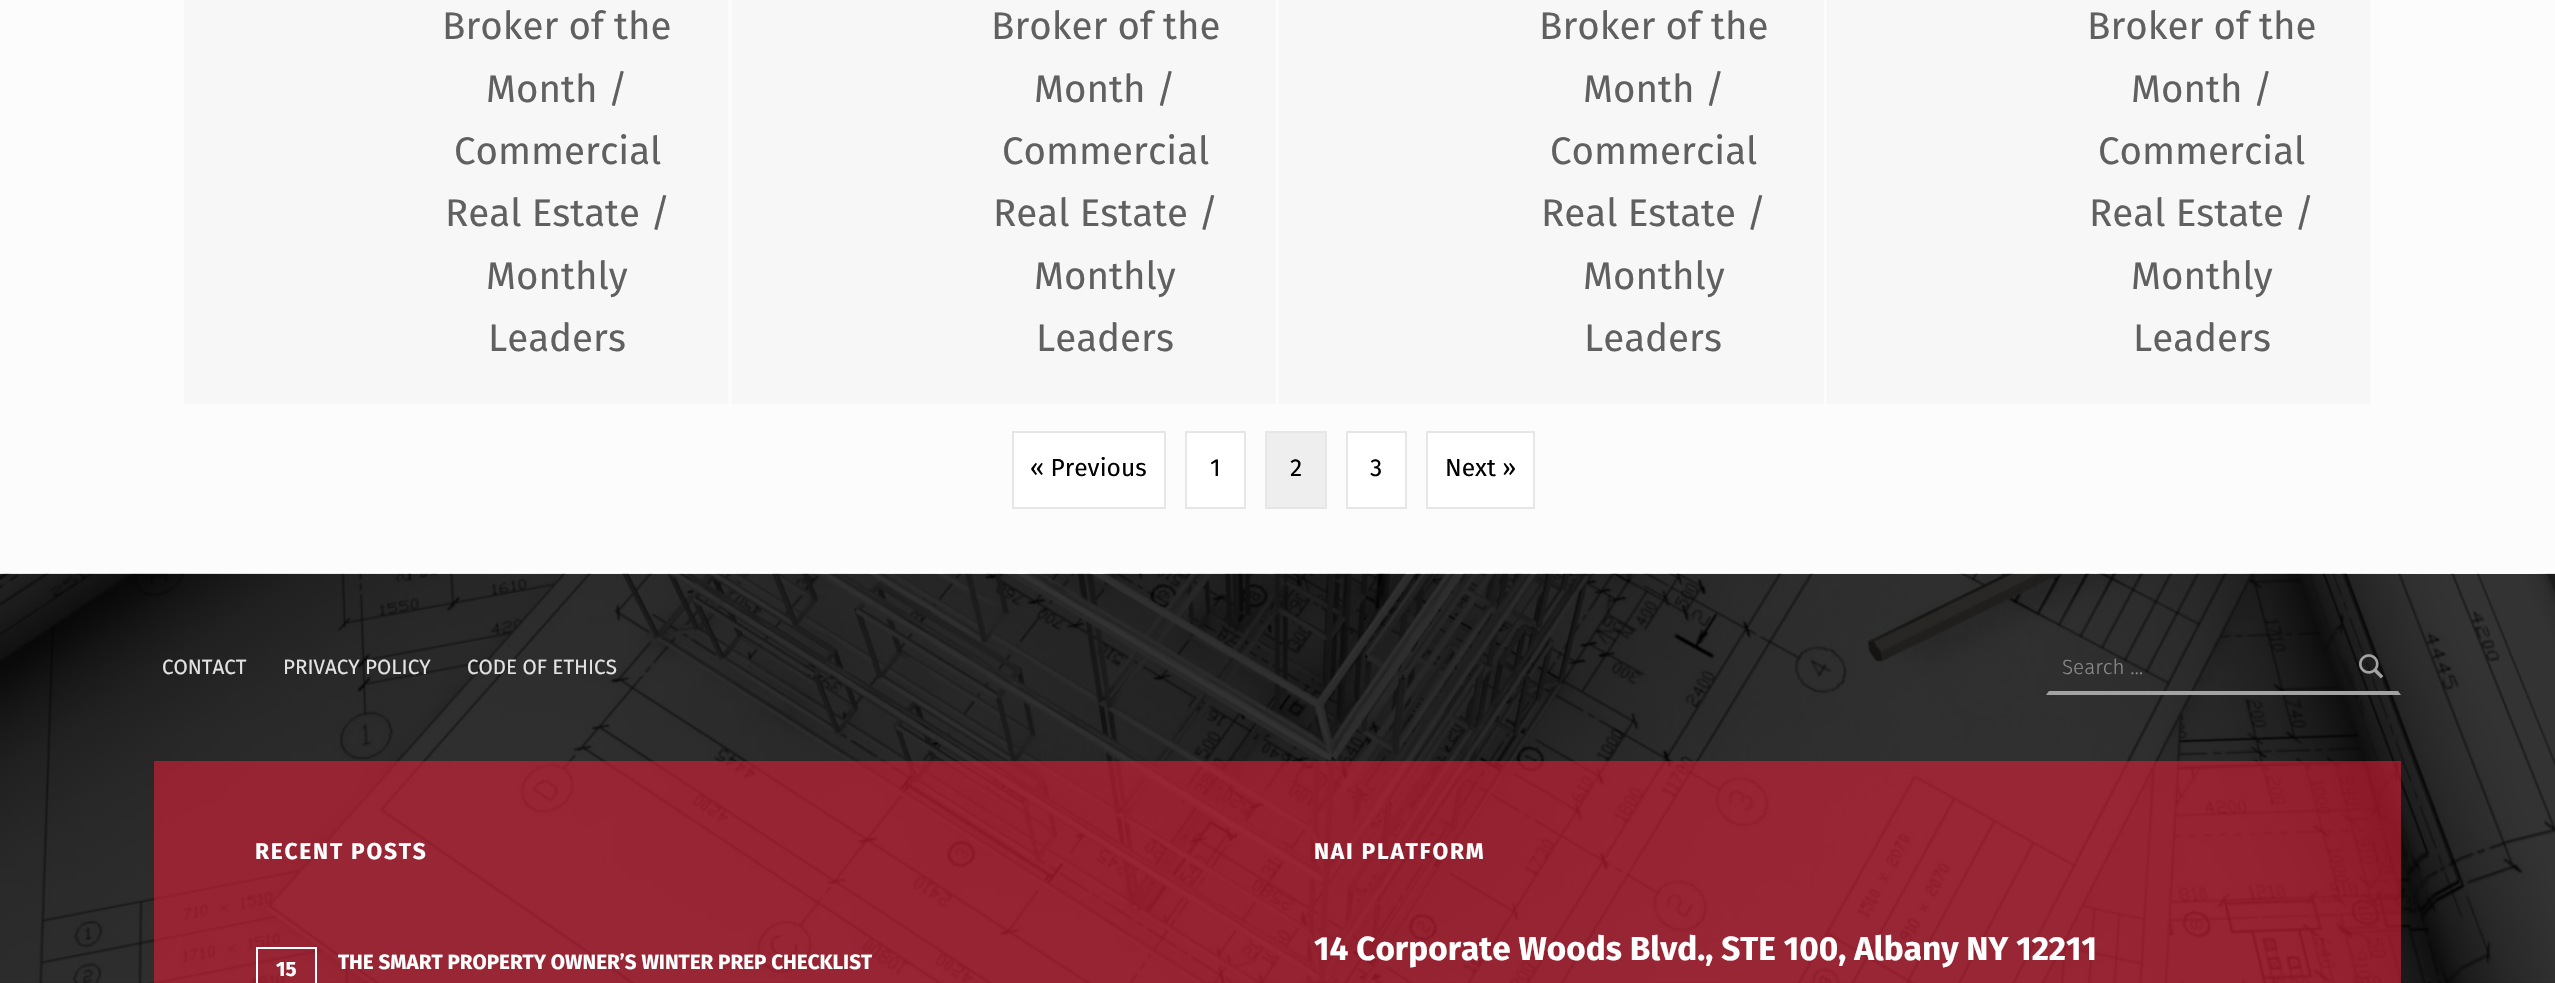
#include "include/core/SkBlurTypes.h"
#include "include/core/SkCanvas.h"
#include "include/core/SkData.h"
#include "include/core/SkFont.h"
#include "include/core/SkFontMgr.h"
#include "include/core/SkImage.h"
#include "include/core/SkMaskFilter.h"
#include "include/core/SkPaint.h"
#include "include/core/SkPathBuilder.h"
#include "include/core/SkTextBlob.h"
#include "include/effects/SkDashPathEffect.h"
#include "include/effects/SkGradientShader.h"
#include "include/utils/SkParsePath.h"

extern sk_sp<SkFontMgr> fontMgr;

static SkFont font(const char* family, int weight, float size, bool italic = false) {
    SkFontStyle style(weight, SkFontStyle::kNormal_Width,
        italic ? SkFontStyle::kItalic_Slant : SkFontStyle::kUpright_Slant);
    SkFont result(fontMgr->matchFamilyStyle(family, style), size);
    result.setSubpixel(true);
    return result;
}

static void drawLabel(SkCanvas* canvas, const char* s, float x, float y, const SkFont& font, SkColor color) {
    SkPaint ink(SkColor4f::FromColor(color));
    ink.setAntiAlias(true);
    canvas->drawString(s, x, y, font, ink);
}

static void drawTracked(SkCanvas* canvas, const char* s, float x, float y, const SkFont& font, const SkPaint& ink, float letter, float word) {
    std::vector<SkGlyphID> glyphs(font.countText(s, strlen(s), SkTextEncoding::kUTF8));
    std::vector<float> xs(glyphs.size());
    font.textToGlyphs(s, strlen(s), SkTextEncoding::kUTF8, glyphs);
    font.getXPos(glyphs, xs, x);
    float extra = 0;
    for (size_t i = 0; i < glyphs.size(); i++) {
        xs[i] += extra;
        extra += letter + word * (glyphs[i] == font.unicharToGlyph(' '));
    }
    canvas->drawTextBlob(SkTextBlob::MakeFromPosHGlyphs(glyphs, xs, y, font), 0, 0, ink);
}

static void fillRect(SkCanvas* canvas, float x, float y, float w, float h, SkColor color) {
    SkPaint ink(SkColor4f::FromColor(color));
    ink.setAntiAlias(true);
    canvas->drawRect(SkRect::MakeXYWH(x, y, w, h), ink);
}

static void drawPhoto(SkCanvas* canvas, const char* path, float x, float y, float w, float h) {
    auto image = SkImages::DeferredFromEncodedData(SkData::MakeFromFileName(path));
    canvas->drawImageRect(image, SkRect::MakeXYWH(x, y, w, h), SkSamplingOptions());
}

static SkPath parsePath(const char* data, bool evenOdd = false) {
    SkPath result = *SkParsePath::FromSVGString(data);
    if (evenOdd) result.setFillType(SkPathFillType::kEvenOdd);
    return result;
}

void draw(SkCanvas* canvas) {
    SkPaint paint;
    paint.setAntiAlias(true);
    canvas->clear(0xFFFDFCFC);
    fillRect(canvas, 184, 0, 544, 404, 0xFFF7F7F7);
    SkFont font1 = font("Fira Sans", 400, 38.5f);
    drawLabel(canvas, "Broker of the", 442, 39, font1, 0xFF606060);
    drawLabel(canvas, "Month /", 486, 102, font1, 0xFF606060);
    drawLabel(canvas, "Commercial", 454, 164, font1, 0xFF606060);
    drawLabel(canvas, "Real Estate /", 445, 226, font1, 0xFF606060);
    drawLabel(canvas, "Monthly", 486, 289, font1, 0xFF606060);
    drawLabel(canvas, "Leaders", 488, 351, font1, 0xFF606060);
    fillRect(canvas, 732, 0, 544, 404, 0xFFF7F7F7);
    drawLabel(canvas, "Broker of the", 991, 39, font1, 0xFF606060);
    drawLabel(canvas, "Month /", 1034, 102, font1, 0xFF606060);
    drawLabel(canvas, "Commercial", 1002, 164, font1, 0xFF606060);
    drawLabel(canvas, "Real Estate /", 993, 226, font1, 0xFF606060);
    drawLabel(canvas, "Monthly", 1034, 289, font1, 0xFF606060);
    drawLabel(canvas, "Leaders", 1036, 351, font1, 0xFF606060);
    fillRect(canvas, 1279, 0, 545, 404, 0xFFF7F7F7);
    drawLabel(canvas, "Broker of the", 1539, 39, font1, 0xFF606060);
    drawLabel(canvas, "Month /", 1583, 102, font1, 0xFF606060);
    drawLabel(canvas, "Commercial", 1550, 164, font1, 0xFF606060);
    drawLabel(canvas, "Real Estate /", 1541, 226, font1, 0xFF606060);
    drawLabel(canvas, "Monthly", 1583, 289, font1, 0xFF606060);
    drawLabel(canvas, "Leaders", 1584, 351, font1, 0xFF606060);
    fillRect(canvas, 1827, 0, 544, 404, 0xFFF7F7F7);
    drawLabel(canvas, "Broker of the", 2087, 39, font1, 0xFF606060);
    drawLabel(canvas, "Month /", 2131, 102, font1, 0xFF606060);
    drawLabel(canvas, "Commercial", 2098, 164, font1, 0xFF606060);
    drawLabel(canvas, "Real Estate /", 2089, 226, font1, 0xFF606060);
    drawLabel(canvas, "Monthly", 2131, 289, font1, 0xFF606060);
    drawLabel(canvas, "Leaders", 2133, 351, font1, 0xFF606060);
    paint.setColor(0xFFFFFFFF);
    canvas->drawRect(SkRect::MakeXYWH(1013, 432, 152, 76), paint);
    paint.setStroke(true);
    paint.setStrokeWidth(2);
    paint.setColor(0xFFE6E6E6);
    canvas->drawRect(SkRect::MakeXYWH(1013, 432, 152, 76), paint);
    SkFont font2 = font("Fira Sans", 400, 24.5f);
    drawLabel(canvas, "« Previous", 1030, 476, font2, 0xFF000000);
    paint.setStroke(false);
    paint.setColor(0xFFFFFFFF);
    canvas->drawRect(SkRect::MakeXYWH(1186, 432, 59, 76), paint);
    paint.setStroke(true);
    paint.setColor(0xFFE6E6E6);
    canvas->drawRect(SkRect::MakeXYWH(1186, 432, 59, 76), paint);
    drawLabel(canvas, "1", 1210, 476, font2, 0xFF000000);
    paint.setStroke(false);
    paint.setColor(0xFFEEEEEE);
    canvas->drawRect(SkRect::MakeXYWH(1266, 432, 60, 76), paint);
    paint.setStroke(true);
    paint.setColor(0xFFE6E6E6);
    canvas->drawRect(SkRect::MakeXYWH(1266, 432, 60, 76), paint);
    drawLabel(canvas, "2", 1290, 476, font2, 0xFF000000);
    paint.setStroke(false);
    paint.setColor(0xFFFFFFFF);
    canvas->drawRect(SkRect::MakeXYWH(1347, 432, 59, 76), paint);
    paint.setStroke(true);
    paint.setColor(0xFFE6E6E6);
    canvas->drawRect(SkRect::MakeXYWH(1347, 432, 59, 76), paint);
    drawLabel(canvas, "3", 1370, 476, font2, 0xFF000000);
    paint.setStroke(false);
    paint.setColor(0xFFFFFFFF);
    canvas->drawRect(SkRect::MakeXYWH(1427, 432, 107, 76), paint);
    paint.setStroke(true);
    paint.setColor(0xFFE6E6E6);
    canvas->drawRect(SkRect::MakeXYWH(1427, 432, 107, 76), paint);
    drawLabel(canvas, "Next »", 1445, 476, font2, 0xFF000000);
    fillRect(canvas, 0, 574, 2555, 409, 0xFF000000);
    drawPhoto(canvas, "assets/img1.png", 0, 573, 2555, 410);
    SkFont font3 = font("Fira Sans", 400, 20.6f);
    drawLabel(canvas, "CONTACT", 162, 674, font3, 0xFFE4E3E3);
    drawLabel(canvas, "PRIVACY POLICY", 283, 674, font3, 0xFFE4E3E3);
    drawLabel(canvas, "CODE OF ETHICS", 467, 674, font3, 0xFFE4E3E3);
    paint.setStroke(false);
    paint.setColor(0xFFA4A3A3);
    canvas->drawPath(parsePath("M2401 695H2046L2049 691H2398Z"), paint);
    SkFont font4 = font("Fira Sans", 300, 20.6f);
    drawLabel(canvas, "Search …", 2062, 674, font4, 0xFF8C8C8C);
    drawPhoto(canvas, "assets/img2.png", 2359, 654, 25, 25);
    fillRect(canvas, 154, 761, 2247, 222, 0x99DC1E35);
    SkFont font5 = font("Fira Sans", 700, 22.75f);
    paint.setColor(0xFFFFFFFF);
    drawTracked(canvas, "RECENT POSTS", 255, 859, font5, paint, 1.75f, 0);
    paint.setStroke(true);
    canvas->drawRect(SkRect::MakeXYWH(257, 948, 59, 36), paint);
    SkFont font6 = font("Fira Sans", 700, 20.6f);
    drawLabel(canvas, "15", 276, 976, font6, 0xFFFFFFFF);
    drawLabel(canvas, "THE SMART PROPERTY OWNER’S WINTER PREP CHECKLIST", 338, 969, font6, 0xFFFFFFFF);
    paint.setStroke(false);
    drawTracked(canvas, "NAI PLATFORM", 1314, 859, font5, paint, 1.75f, 0);
    SkFont font7 = font("Fira Sans", 700, 33.35f);
    drawLabel(canvas, "14 Corporate Woods Blvd., STE 100, Albany NY 12211", 1314, 960, font7, 0xFFFFFFFF);
}
